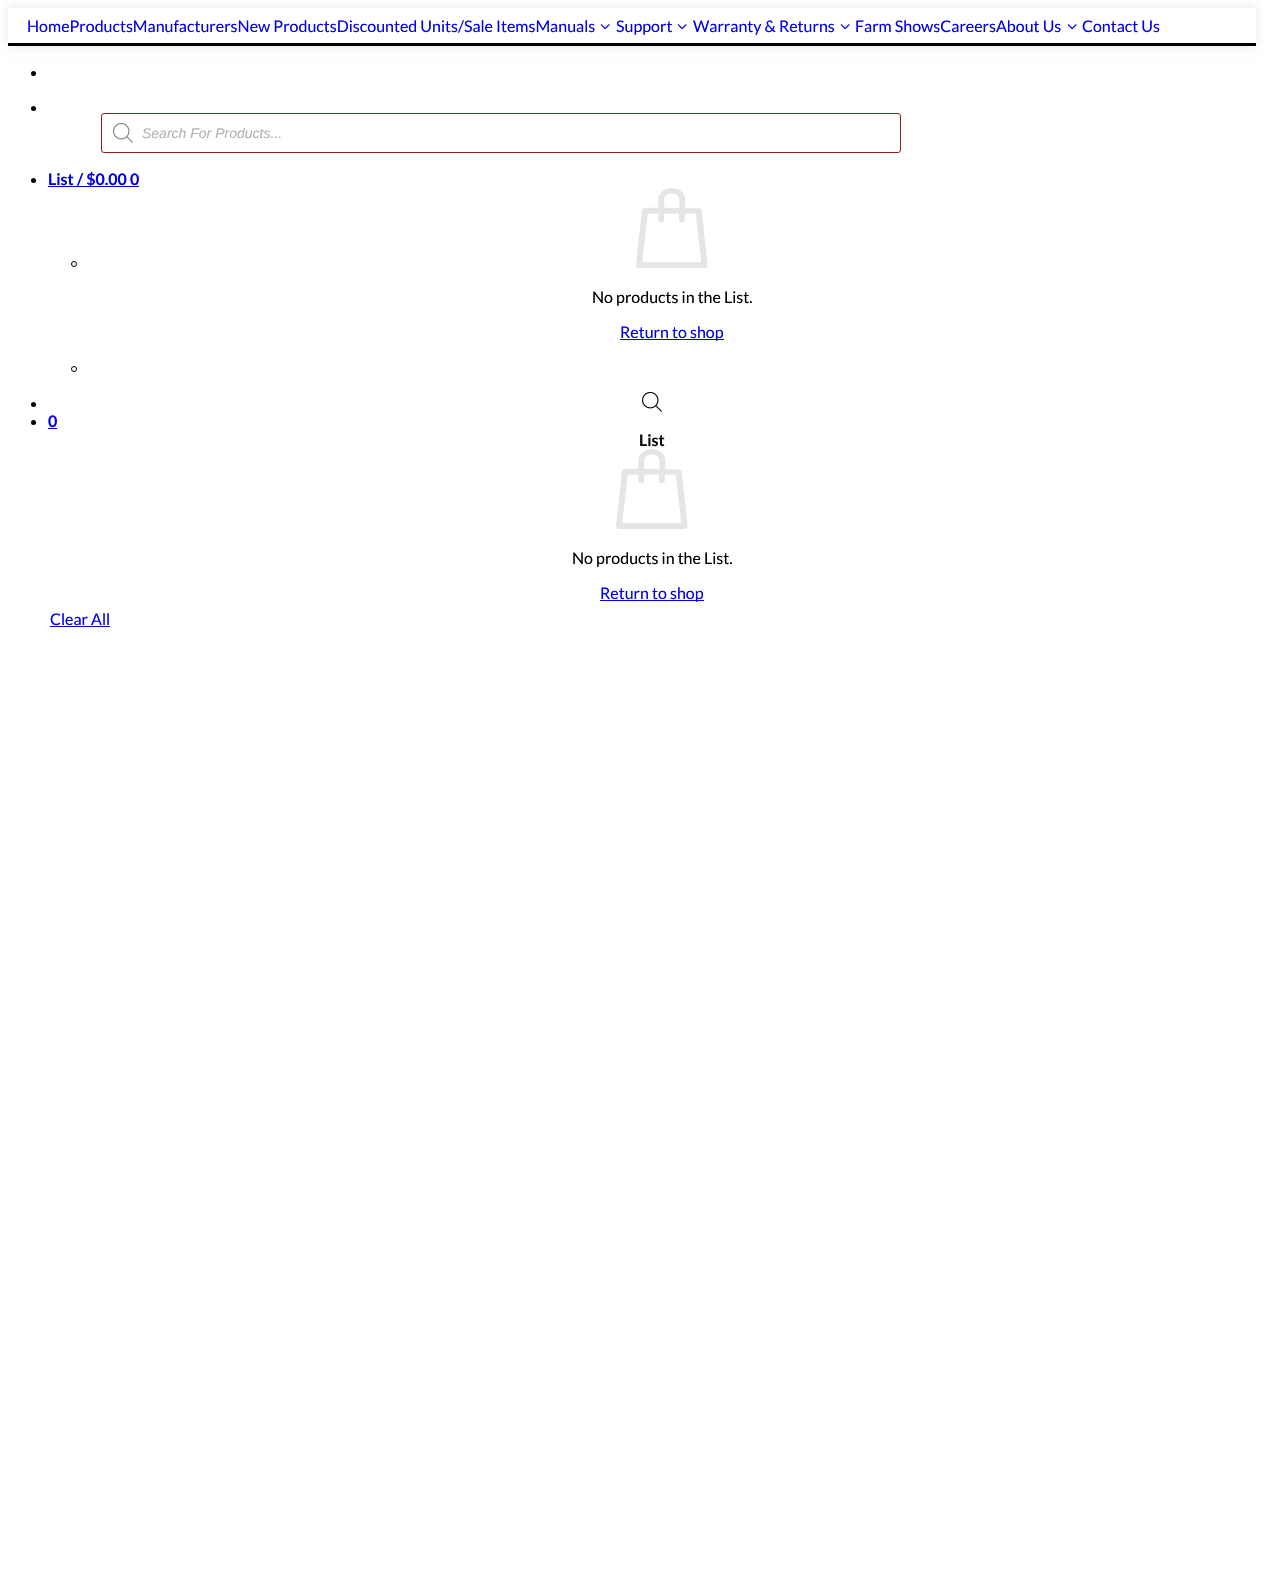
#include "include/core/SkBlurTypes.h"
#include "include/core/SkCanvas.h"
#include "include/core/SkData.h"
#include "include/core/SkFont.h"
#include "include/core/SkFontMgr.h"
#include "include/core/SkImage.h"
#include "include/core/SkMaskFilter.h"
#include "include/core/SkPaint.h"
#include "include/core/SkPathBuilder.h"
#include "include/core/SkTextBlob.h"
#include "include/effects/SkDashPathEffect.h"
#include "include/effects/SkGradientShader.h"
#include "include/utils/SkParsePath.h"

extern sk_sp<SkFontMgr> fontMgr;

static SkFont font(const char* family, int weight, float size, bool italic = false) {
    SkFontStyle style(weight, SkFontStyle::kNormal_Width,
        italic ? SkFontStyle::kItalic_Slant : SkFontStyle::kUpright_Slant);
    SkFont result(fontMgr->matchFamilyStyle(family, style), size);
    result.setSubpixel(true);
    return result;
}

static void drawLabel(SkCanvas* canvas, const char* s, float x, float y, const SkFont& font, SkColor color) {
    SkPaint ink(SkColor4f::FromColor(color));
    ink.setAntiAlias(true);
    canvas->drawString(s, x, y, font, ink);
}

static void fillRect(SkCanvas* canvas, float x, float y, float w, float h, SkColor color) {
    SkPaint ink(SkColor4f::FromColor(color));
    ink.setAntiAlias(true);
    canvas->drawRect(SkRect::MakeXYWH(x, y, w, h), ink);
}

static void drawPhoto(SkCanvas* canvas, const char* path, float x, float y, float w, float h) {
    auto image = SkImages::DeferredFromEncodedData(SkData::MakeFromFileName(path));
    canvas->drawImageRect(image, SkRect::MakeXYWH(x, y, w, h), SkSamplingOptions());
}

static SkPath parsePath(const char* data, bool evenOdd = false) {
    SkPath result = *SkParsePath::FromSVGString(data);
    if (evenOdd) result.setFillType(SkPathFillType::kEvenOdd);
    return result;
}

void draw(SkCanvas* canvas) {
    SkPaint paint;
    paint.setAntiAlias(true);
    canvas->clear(0xFFFFFFFF);
    canvas->save();
    canvas->clipPath(parsePath("M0 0H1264V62H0ZM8 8H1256V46H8Z", true), true);
    paint.setColor(0x1A000000);
    paint.setMaskFilter(SkMaskFilter::MakeBlur(kNormal_SkBlurStyle, 5));
    canvas->drawRect(SkRect::MakeXYWH(8, 8, 1248, 38), paint);
    paint.setMaskFilter(nullptr);
    canvas->restore();
    fillRect(canvas, 8, 43, 1248, 3, 0xFF000000);
    SkFont font1 = font("Lato", 400, 16);
    drawLabel(canvas, "HomeProductsManufacturersNew ProductsDiscounted Units/Sale ItemsManuals", 27, 32, font1, 0xFF0000EE);
    drawPhoto(canvas, "assets/img1.png", 600, 24, 10, 6);
    drawLabel(canvas, "Support", 616, 32, font1, 0xFF0000EE);
    drawPhoto(canvas, "assets/img1.png", 677, 24, 10, 6);
    drawLabel(canvas, "Warranty & Returns", 693, 32, font1, 0xFF0000EE);
    drawPhoto(canvas, "assets/img1.png", 840, 24, 10, 6);
    drawLabel(canvas, "Farm ShowsCareersAbout Us", 855, 32, font1, 0xFF0000EE);
    drawPhoto(canvas, "assets/img1.png", 1067, 24, 10, 6);
    drawLabel(canvas, "Contact Us", 1082, 32, font1, 0xFF0000EE);
    paint.setColor(0xFF000000);
    canvas->drawCircle(33.5f, 73.5f, 2.5f, paint);
    canvas->drawCircle(33.5f, 108.5f, 2.5f, paint);
    paint.setStroke(true);
    paint.setStrokeWidth(1);
    paint.setColor(0xFF8E201C);
    canvas->drawRoundRect(SkRect::MakeXYWH(101.5f, 113.5f, 799, 39), 2.5f, 2.5f, paint);
    drawPhoto(canvas, "assets/img2.png", 113, 123, 20, 20);
    SkFont font2 = font("Liberation Sans", 400, 14, true);
    drawLabel(canvas, "Search For Products...", 142, 138, font2, 0xFFB3B3B3);
    paint.setStroke(false);
    paint.setColor(0xFF000000);
    canvas->drawCircle(33.5f, 180.5f, 2.5f, paint);
    fillRect(canvas, 48, 186, 91, 1, 0xFF0000EE);
    SkFont font3 = font("Lato", 700, 16);
    drawLabel(canvas, "List / $0.00 0", 48, 185, font3, 0xFF0000EE);
    paint.setStroke(true);
    canvas->drawCircle(74, 264, 2.5f, paint);
    drawPhoto(canvas, "assets/img3.png", 636, 188, 72, 80);
    drawLabel(canvas, "No products in the List.", 592, 303, font1, 0xFF000000);
    fillRect(canvas, 620, 339, 104, 1, 0xFF0000EE);
    drawLabel(canvas, "Return to shop", 620, 338, font1, 0xFF0000EE);
    canvas->drawCircle(74, 369, 2.5f, paint);
    paint.setStroke(false);
    canvas->drawCircle(33.5f, 404.5f, 2.5f, paint);
    drawPhoto(canvas, "assets/img4.png", 642, 392, 20, 20);
    canvas->drawCircle(33.5f, 422.5f, 2.5f, paint);
    drawLabel(canvas, "0", 48, 427, font3, 0xFF0000EE);
    fillRect(canvas, 48, 428, 9, 1, 0xFF0000EE);
    drawLabel(canvas, "List", 639, 446, font3, 0xFF0A0A0A);
    drawPhoto(canvas, "assets/img3.png", 616, 449, 72, 80);
    drawLabel(canvas, "No products in the List.", 572, 564, font1, 0xFF000000);
    fillRect(canvas, 600, 600, 104, 1, 0xFF0000EE);
    drawLabel(canvas, "Return to shop", 600, 599, font1, 0xFF0000EE);
    drawLabel(canvas, "Clear All", 50, 625, font1, 0xFF0000EE);
    fillRect(canvas, 50, 626, 60, 1, 0xFF0000EE);
}
